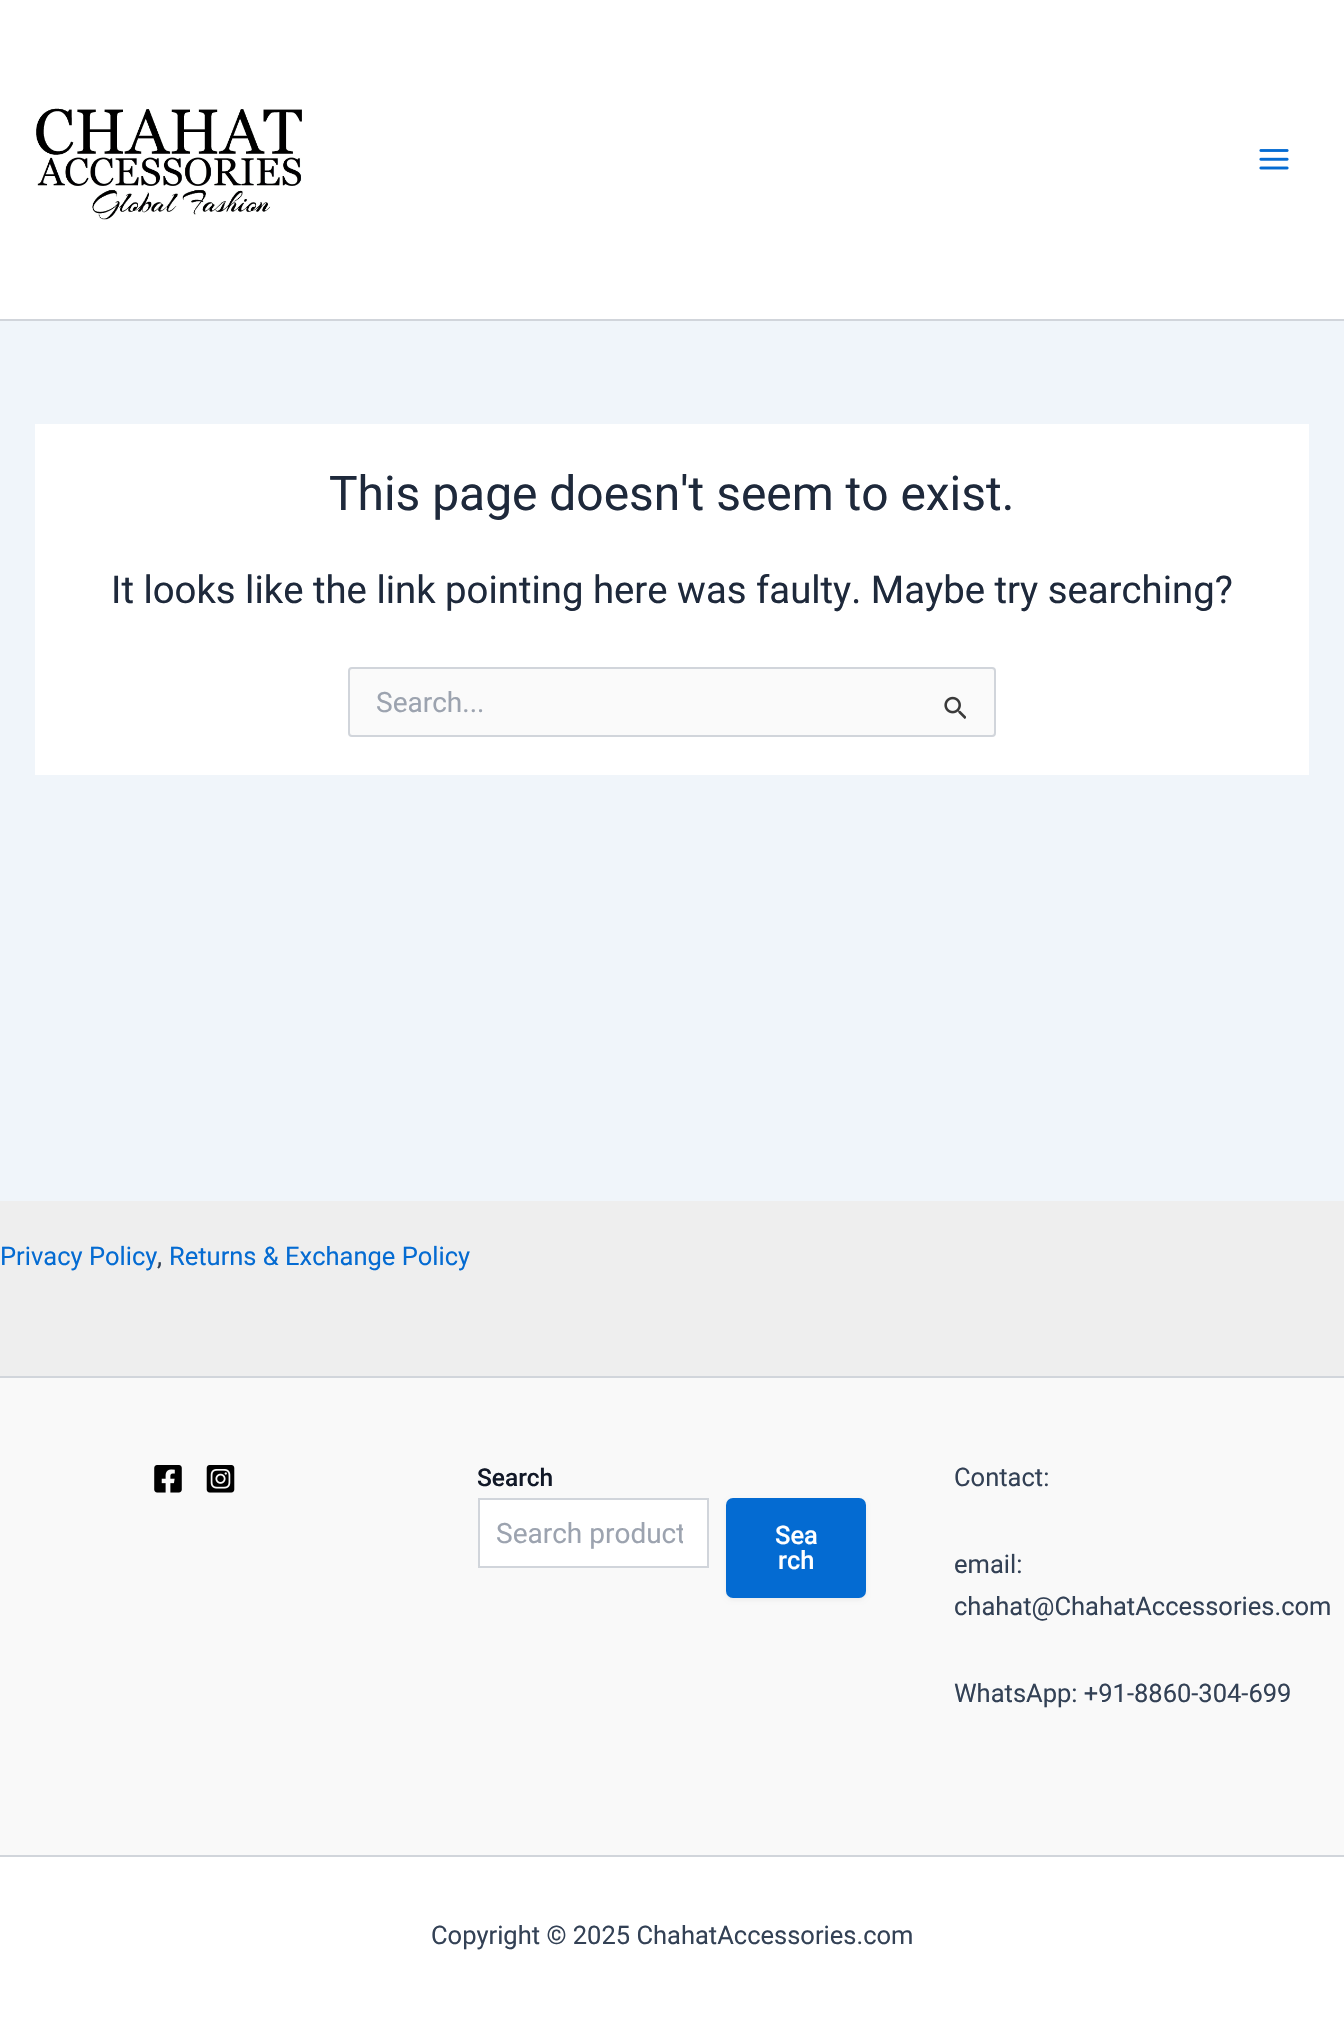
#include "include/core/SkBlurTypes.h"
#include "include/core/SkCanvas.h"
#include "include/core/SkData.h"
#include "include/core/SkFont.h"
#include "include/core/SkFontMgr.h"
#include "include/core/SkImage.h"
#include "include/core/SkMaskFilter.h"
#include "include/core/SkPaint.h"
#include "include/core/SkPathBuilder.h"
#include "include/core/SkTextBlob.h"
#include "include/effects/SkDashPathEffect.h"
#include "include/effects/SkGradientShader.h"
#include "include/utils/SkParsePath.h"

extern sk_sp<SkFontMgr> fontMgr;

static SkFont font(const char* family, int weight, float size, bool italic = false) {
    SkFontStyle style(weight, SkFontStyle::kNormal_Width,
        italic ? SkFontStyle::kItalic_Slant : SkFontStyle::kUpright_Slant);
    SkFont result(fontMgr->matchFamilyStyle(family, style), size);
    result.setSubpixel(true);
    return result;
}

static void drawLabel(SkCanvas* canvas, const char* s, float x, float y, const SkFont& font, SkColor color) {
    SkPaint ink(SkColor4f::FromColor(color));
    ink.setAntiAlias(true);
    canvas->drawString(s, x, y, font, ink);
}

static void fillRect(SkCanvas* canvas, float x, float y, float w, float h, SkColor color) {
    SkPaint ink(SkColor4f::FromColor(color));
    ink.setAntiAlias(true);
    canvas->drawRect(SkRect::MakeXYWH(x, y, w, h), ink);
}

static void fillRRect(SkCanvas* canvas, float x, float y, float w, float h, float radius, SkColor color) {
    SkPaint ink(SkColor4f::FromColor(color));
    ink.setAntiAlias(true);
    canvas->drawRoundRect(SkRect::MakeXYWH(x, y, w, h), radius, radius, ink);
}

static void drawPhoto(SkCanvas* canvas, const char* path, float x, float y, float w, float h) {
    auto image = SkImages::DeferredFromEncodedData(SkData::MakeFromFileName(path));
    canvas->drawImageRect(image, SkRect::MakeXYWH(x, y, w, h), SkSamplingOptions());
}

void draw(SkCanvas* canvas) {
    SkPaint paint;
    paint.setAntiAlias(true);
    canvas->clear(0xFFF0F5FA);
    fillRect(canvas, 0, 0, 1344, 319, 0xFFFFFFFF);
    fillRect(canvas, 0, 319, 1344, 2, 0xFFD1D5DB);
    drawPhoto(canvas, "assets/img1.png", 36, 108, 266, 112);
    drawPhoto(canvas, "assets/img2.png", 1259, 149, 30, 21);
    fillRect(canvas, 35, 424, 1274, 351, 0xFFFFFFFF);
    SkFont font1 = font("Roboto", 400, 47.9f);
    drawLabel(canvas, "This page doesn't seem to exist.", 329, 510, font1, 0xFF1E293B);
    SkFont font2 = font("Roboto", 400, 38.3f);
    drawLabel(canvas, "It looks like the link pointing here was faulty. Maybe try searching?", 111, 603, font2, 0xFF1E293B);
    paint.setColor(0xFFFAFAFA);
    canvas->drawRoundRect(SkRect::MakeXYWH(349, 668, 646, 68), 3, 3, paint);
    paint.setStroke(true);
    paint.setStrokeWidth(2);
    paint.setColor(0xFFD1D5DB);
    canvas->drawRoundRect(SkRect::MakeXYWH(349, 668, 646, 68), 3, 3, paint);
    SkFont font3 = font("Roboto", 400, 28);
    drawLabel(canvas, "Search...", 376, 712, font3, 0xFF9CA3AF);
    drawPhoto(canvas, "assets/img3.png", 944, 696, 22, 23);
    fillRect(canvas, 0, 1201, 1344, 175, 0xFFEEEEEE);
    SkFont font4 = font("Roboto", 400, 25.5f);
    drawLabel(canvas, "Privacy Policy", 0, 1265, font4, 0xFF046BD2);
    drawLabel(canvas, ",", 157, 1265, font4, 0xFF334155);
    drawLabel(canvas, "Returns & Exchange Policy", 169, 1265, font4, 0xFF046BD2);
    fillRect(canvas, 0, 1378, 1344, 477, 0xFFF9F9F9);
    fillRect(canvas, 0, 1376, 1344, 2, 0xFFD1D5DB);
    drawPhoto(canvas, "assets/img4.png", 154, 1465, 28, 28);
    drawPhoto(canvas, "assets/img5.png", 206, 1465, 29, 28);
    SkFont font5 = font("Roboto", 500, 24.5f);
    drawLabel(canvas, "Search", 477, 1486, font5, 0xFF111827);
    paint.setStroke(false);
    paint.setColor(0xFFFFFFFF);
    canvas->drawRect(SkRect::MakeXYWH(479, 1499, 229, 68), paint);
    paint.setStroke(true);
    paint.setColor(0xFFD1D5DB);
    canvas->drawRect(SkRect::MakeXYWH(479, 1499, 229, 68), paint);
    canvas->save();
    canvas->clipRect(SkRect::MakeXYWH(497, 1517, 186, 34));
    drawLabel(canvas, "Search product", 496, 1543, font3, 0xFF9CA3AF);
    canvas->restore();
    paint.setStroke(false);
    paint.setColor(0x0D000000);
    paint.setMaskFilter(SkMaskFilter::MakeBlur(kNormal_SkBlurStyle, 2));
    canvas->drawRoundRect(SkRect::MakeXYWH(726, 1500, 140, 100), 7, 7, paint);
    paint.setMaskFilter(nullptr);
    fillRRect(canvas, 726, 1498, 140, 100, 7, 0xFF046BD2);
    SkFont font6 = font("Roboto", 500, 25.5f);
    drawLabel(canvas, "Sea", 775, 1544, font6, 0xFFFFFFFF);
    drawLabel(canvas, "rch", 778, 1569, font6, 0xFFFFFFFF);
    drawLabel(canvas, "Contact:", 954, 1486, font4, 0xFF334155);
    drawLabel(canvas, "email:", 954, 1573, font4, 0xFF334155);
    drawLabel(canvas, "chahat@ChahatAccessories.com", 954, 1615, font4, 0xFF334155);
    drawLabel(canvas, "WhatsApp: +91-8860-304-699", 954, 1702, font4, 0xFF334155);
    fillRect(canvas, 0, 1857, 1344, 174, 0xFFFFFFFF);
    fillRect(canvas, 0, 1855, 1344, 2, 0xFFD1D5DB);
    drawLabel(canvas, "Copyright © 2025 ChahatAccessories.com", 431, 1944, font4, 0xFF334155);
}
